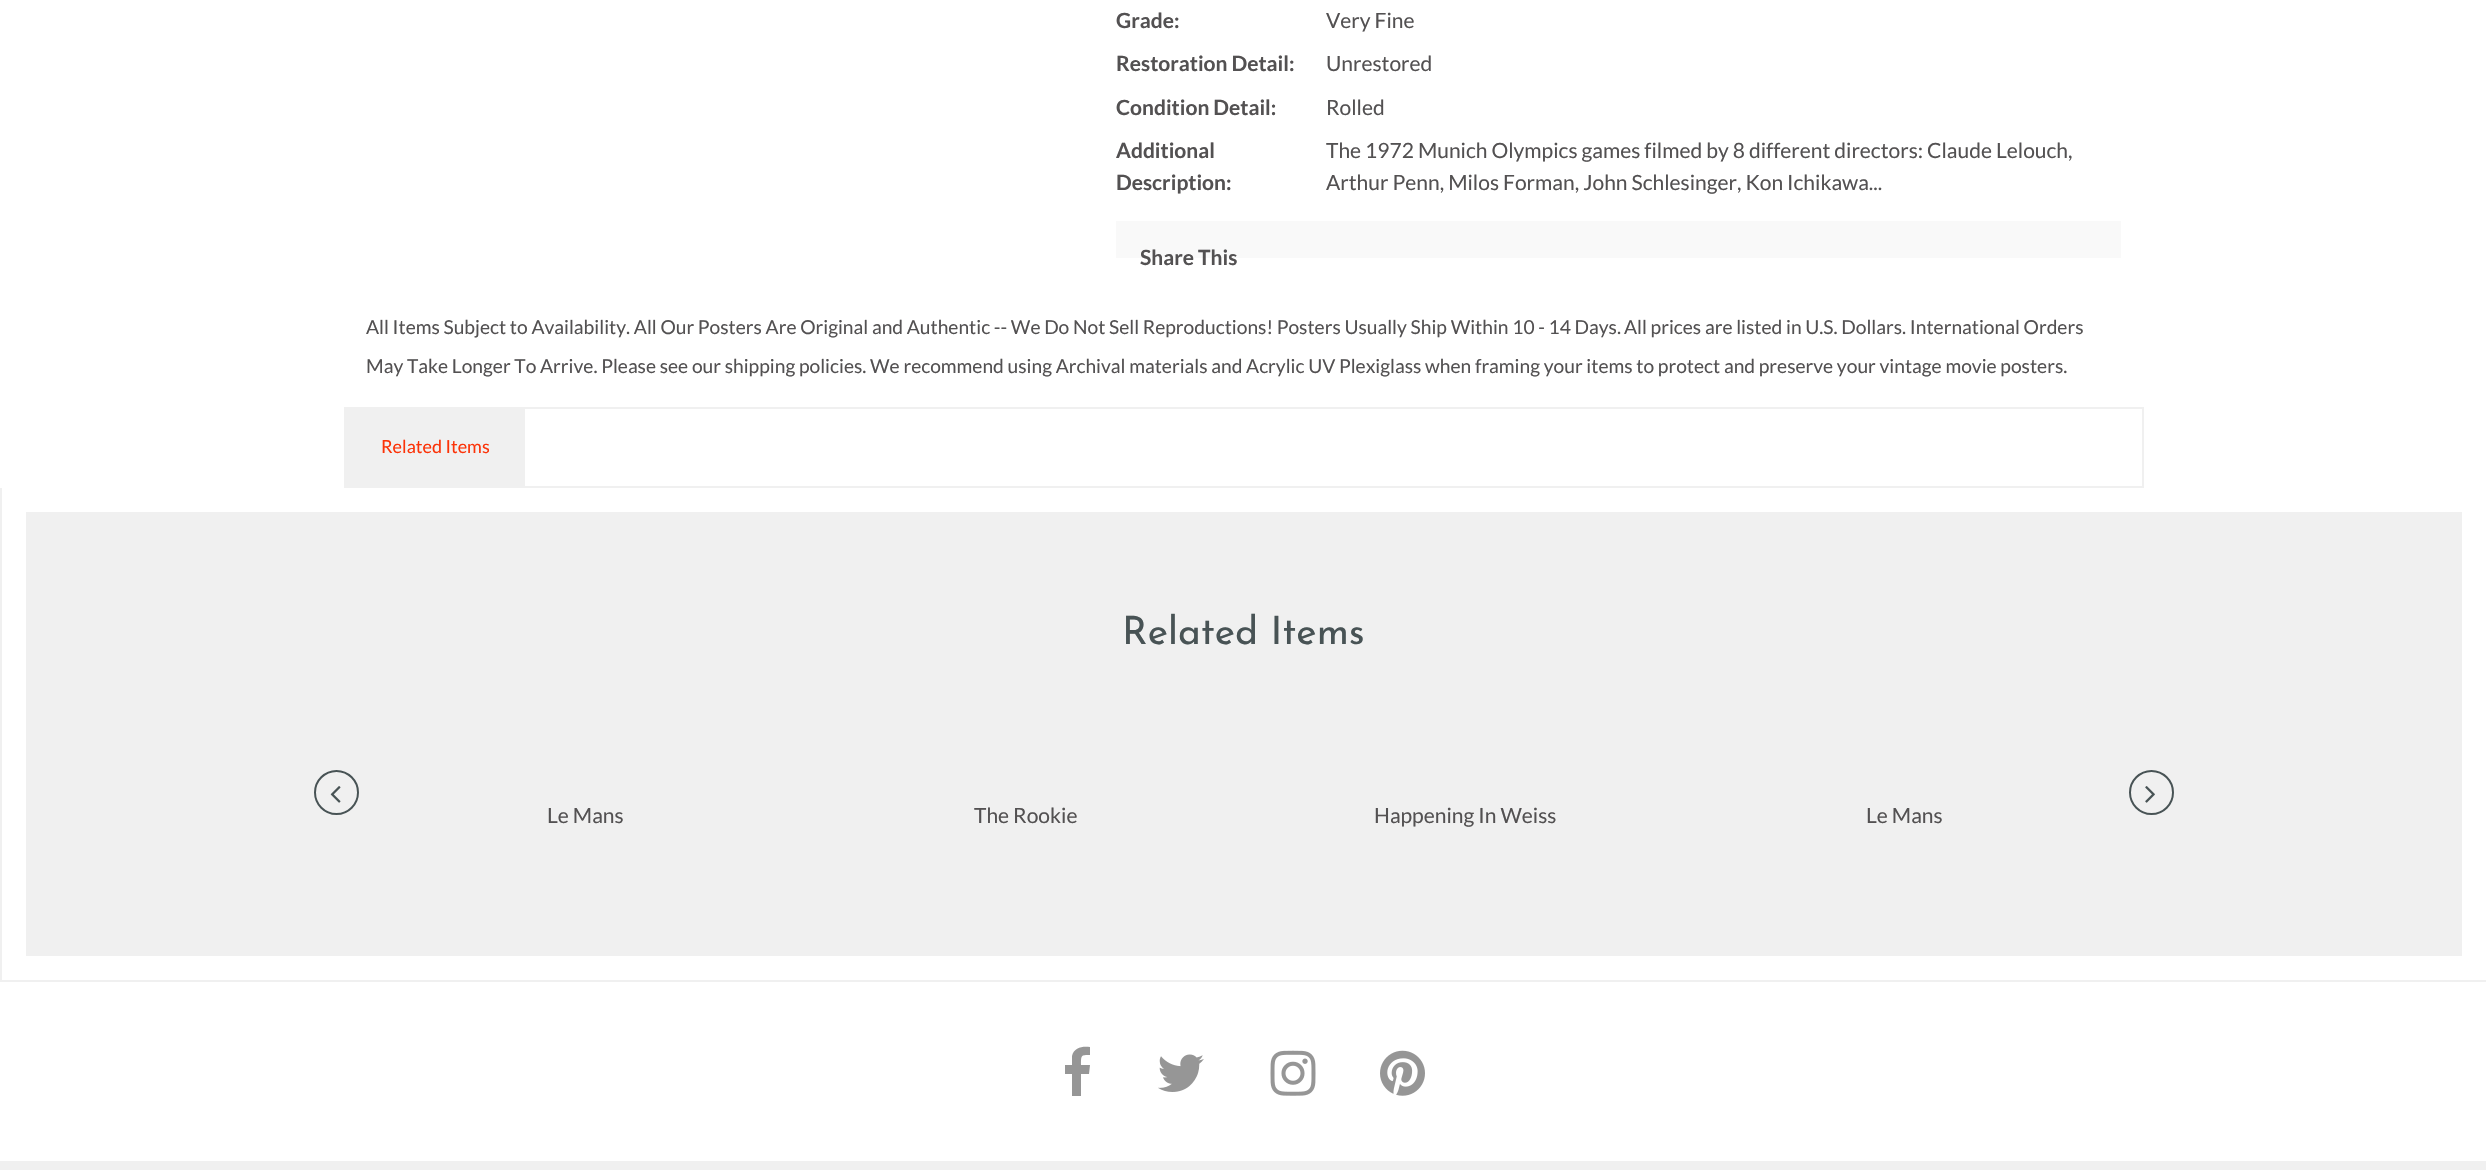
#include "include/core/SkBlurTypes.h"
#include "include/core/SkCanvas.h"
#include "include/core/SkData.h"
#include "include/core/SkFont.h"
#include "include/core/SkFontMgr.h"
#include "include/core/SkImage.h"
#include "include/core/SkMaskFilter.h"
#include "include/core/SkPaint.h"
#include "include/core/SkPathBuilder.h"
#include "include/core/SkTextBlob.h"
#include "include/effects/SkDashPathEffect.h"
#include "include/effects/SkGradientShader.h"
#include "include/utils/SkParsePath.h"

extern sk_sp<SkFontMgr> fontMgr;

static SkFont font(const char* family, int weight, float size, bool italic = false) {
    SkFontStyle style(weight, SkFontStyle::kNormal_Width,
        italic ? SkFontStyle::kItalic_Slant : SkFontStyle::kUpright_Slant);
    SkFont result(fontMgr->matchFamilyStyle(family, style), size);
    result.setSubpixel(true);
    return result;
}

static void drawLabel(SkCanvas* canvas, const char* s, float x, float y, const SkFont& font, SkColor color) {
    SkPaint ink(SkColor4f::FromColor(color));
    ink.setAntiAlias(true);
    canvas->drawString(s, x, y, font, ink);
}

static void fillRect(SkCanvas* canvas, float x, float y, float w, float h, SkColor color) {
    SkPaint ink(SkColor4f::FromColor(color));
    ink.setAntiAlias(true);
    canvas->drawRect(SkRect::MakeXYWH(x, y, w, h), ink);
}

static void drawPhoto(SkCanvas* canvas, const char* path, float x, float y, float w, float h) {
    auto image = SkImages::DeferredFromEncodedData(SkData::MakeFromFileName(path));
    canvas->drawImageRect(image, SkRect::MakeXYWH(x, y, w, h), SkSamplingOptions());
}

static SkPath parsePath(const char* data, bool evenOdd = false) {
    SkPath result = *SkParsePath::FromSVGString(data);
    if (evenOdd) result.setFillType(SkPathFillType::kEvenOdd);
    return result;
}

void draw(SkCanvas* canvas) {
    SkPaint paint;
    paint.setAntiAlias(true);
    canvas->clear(0xFFFFFFFF);
    SkFont font1 = font("Lato", 700, 21);
    drawLabel(canvas, "Grade:", 1116, 28, font1, 0xFF535152);
    SkFont font2 = font("Lato", 400, 21);
    drawLabel(canvas, "Very Fine", 1326, 28, font2, 0xFF535152);
    drawLabel(canvas, "Restoration Detail:", 1116, 71, font1, 0xFF535152);
    drawLabel(canvas, "Unrestored", 1326, 71, font2, 0xFF535152);
    drawLabel(canvas, "Condition Detail:", 1116, 115, font1, 0xFF535152);
    drawLabel(canvas, "Rolled", 1326, 115, font2, 0xFF535152);
    drawLabel(canvas, "Additional", 1116, 158, font1, 0xFF535152);
    drawLabel(canvas, "Description:", 1116, 190, font1, 0xFF535152);
    drawLabel(canvas, "The 1972 Munich Olympics games filmed by 8 different directors: Claude Lelouch,", 1326, 158, font2, 0xFF535152);
    drawLabel(canvas, "Arthur Penn, Milos Forman, John Schlesinger, Kon Ichikawa...", 1326, 190, font2, 0xFF535152);
    fillRect(canvas, 1116, 221, 1005, 37, 0xFFF9F9F9);
    drawLabel(canvas, "Share This", 1140, 265, font1, 0xFF535152);
    SkFont font3 = font("Lato", 400, 19.2f);
    drawLabel(canvas, "All Items Subject to Availability. All Our Posters Are Original and Authentic -- We Do Not Sell Reproductions! Posters Usually Ship Within 10 - 14 Days.", 366, 334, font3, 0xFF535152);
    drawLabel(canvas, "All prices are listed in U.S. Dollars. International Orders", 1624, 334, font3, 0xFF535152);
    drawLabel(canvas, "May Take Longer To Arrive. Please see our shipping policies. We recommend using Archival materials and Acrylic UV Plexiglass when framing your items to protect and preserve your vintage movie posters.", 366, 373, font3, 0xFF535152);
    paint.setStroke(true);
    paint.setStrokeWidth(2);
    paint.setColor(0xFFF0F0F0);
    canvas->drawRect(SkRect::MakeXYWH(345, 408, 1798, 79), paint);
    fillRect(canvas, 346, 409, 179, 77, 0xFFF0F0F0);
    SkFont font4 = font("Lato", 400, 18);
    drawLabel(canvas, "Related Items", 381, 453, font4, 0xFFFC3308);
    fillRect(canvas, 0, 980, 2486, 2, 0xFFF0F0F0);
    fillRect(canvas, 0, 488, 2, 493, 0xFFF0F0F0);
    fillRect(canvas, 26, 512, 2436, 444, 0xFFF0F0F0);
    SkFont font5 = font("Josefin Sans", 100, 39);
    drawLabel(canvas, "Related Items", 1122, 644, font5, 0xFF485355);
    paint.setColor(0xFF485355);
    canvas->drawCircle(336.5f, 792.5f, 21.5f, paint);
    drawPhoto(canvas, "assets/img1.png", 330, 786, 11, 17);
    canvas->drawCircle(2151.5f, 792.5f, 21.5f, paint);
    drawPhoto(canvas, "assets/img2.png", 2145, 786, 10, 17);
    drawLabel(canvas, "Le Mans", 547, 823, font2, 0xFF535152);
    drawLabel(canvas, "The Rookie", 974, 823, font2, 0xFF535152);
    drawLabel(canvas, "Happening In Weiss", 1374, 823, font2, 0xFF535152);
    drawLabel(canvas, "Le Mans", 1866, 823, font2, 0xFF535152);
    paint.setStroke(false);
    paint.setColor(0xFF969696);
    canvas->drawPath(parsePath("M1090 1047V1055C1081 1055 1081 1055 1081 1065H1090L1089 1074H1081V1096H1072V1074H1065V1065H1072V1056C1074 1047 1083 1046 1090 1047Z"), paint);
    drawPhoto(canvas, "assets/img3.png", 1158, 1054, 46, 38);
    drawPhoto(canvas, "assets/img4.png", 1270, 1050, 46, 46);
    drawPhoto(canvas, "assets/img5.png", 1380, 1050, 45, 46);
    fillRect(canvas, 0, 1161, 2486, 9, 0xFFF0F0F0);
}
